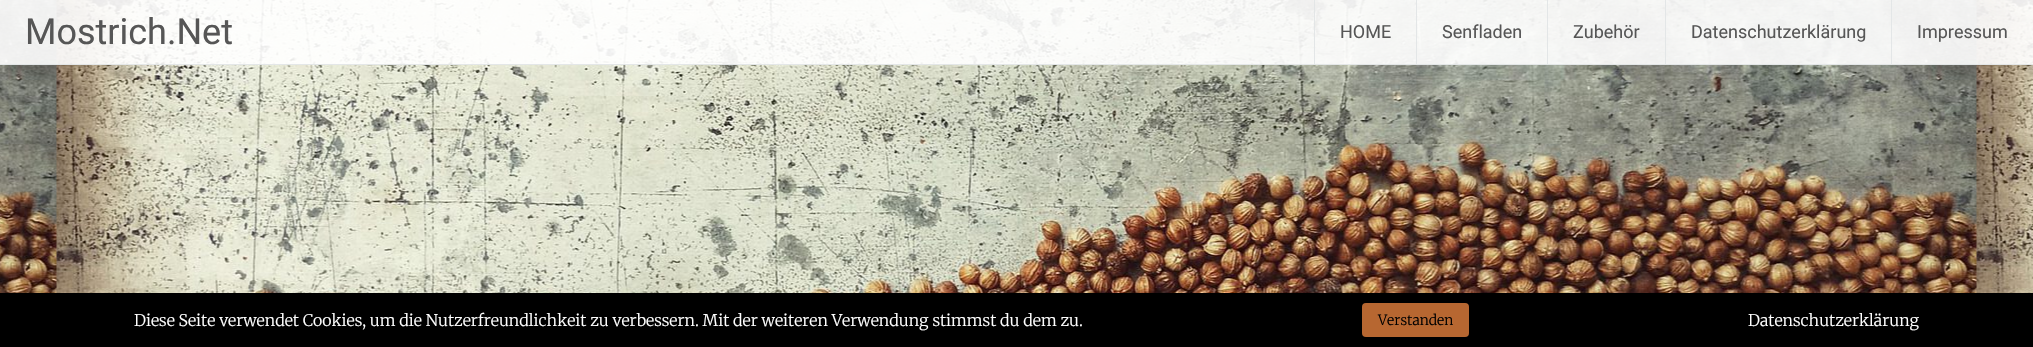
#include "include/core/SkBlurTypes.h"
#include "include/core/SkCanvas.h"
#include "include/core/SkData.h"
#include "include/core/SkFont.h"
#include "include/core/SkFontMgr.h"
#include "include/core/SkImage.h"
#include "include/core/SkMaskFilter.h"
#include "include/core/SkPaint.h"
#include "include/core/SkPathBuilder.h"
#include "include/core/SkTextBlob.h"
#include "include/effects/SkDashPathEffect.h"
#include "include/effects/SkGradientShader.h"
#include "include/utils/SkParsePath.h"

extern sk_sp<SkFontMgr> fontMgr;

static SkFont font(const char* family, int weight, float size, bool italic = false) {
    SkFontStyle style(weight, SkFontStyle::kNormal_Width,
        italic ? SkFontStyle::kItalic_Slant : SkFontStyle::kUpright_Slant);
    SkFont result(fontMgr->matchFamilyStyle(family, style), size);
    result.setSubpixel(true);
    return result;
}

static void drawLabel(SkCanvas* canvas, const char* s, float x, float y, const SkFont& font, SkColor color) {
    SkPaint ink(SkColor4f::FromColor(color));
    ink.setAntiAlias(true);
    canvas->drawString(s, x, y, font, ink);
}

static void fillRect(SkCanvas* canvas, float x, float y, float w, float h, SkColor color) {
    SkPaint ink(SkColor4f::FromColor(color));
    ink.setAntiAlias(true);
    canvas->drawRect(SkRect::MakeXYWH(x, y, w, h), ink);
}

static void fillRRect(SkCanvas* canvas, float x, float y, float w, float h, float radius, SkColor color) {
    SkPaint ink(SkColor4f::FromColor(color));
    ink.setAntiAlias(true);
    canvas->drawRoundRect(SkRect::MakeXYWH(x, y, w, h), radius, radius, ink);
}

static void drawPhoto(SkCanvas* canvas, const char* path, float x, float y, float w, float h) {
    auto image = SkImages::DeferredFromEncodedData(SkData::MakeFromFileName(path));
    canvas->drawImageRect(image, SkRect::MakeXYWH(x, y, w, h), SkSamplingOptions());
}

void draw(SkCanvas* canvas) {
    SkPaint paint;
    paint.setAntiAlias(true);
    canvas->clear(0xFFFFFFFF);
    drawPhoto(canvas, "assets/img1.png", 0, 0, 2033, 293);
    fillRect(canvas, 0, 0, 2033, 65, 0xE6FFFFFF);
    fillRect(canvas, 0, 64, 2033, 1, 0xE6E1E4E6);
    SkFont font1 = font("Roboto", 400, 36);
    drawLabel(canvas, "Mostrich.Net", 25, 44, font1, 0xFF565656);
    fillRect(canvas, 1314, 0, 1, 64, 0xE6E1E4E6);
    SkFont font2 = font("Roboto", 400, 18);
    drawLabel(canvas, "HOME", 1340, 38, font2, 0xFF565656);
    fillRect(canvas, 1416, 0, 1, 64, 0xE6E1E4E6);
    drawLabel(canvas, "Senfladen", 1442, 38, font2, 0xFF565656);
    fillRect(canvas, 1547, 0, 1, 64, 0xE6E1E4E6);
    drawLabel(canvas, "Zubehör", 1573, 38, font2, 0xFF565656);
    fillRect(canvas, 1665, 0, 1, 64, 0xE6E1E4E6);
    drawLabel(canvas, "Datenschutzerklärung", 1691, 38, font2, 0xFF565656);
    fillRect(canvas, 1891, 0, 1, 64, 0xE6E1E4E6);
    drawLabel(canvas, "Impressum", 1917, 38, font2, 0xFF565656);
    fillRect(canvas, 0, 293, 2033, 54, 0xFF000000);
    SkFont font3 = font("Merriweather", 300, 16);
    drawLabel(canvas, "Diese Seite verwendet Cookies, um die Nutzerfreundlichkeit zu verbessern. Mit der weiteren Verwendung stimmst du dem zu.", 134, 326, font3, 0xFFFFFFFF);
    fillRRect(canvas, 1362, 303, 107, 34, 4, 0xFFB76731);
    SkFont font4 = font("Merriweather", 300, 14);
    drawLabel(canvas, "Verstanden", 1378, 325, font4, 0xFF000000);
    drawLabel(canvas, "Datenschutzerklärung", 1748, 326, font3, 0xFFFFFFFF);
}
